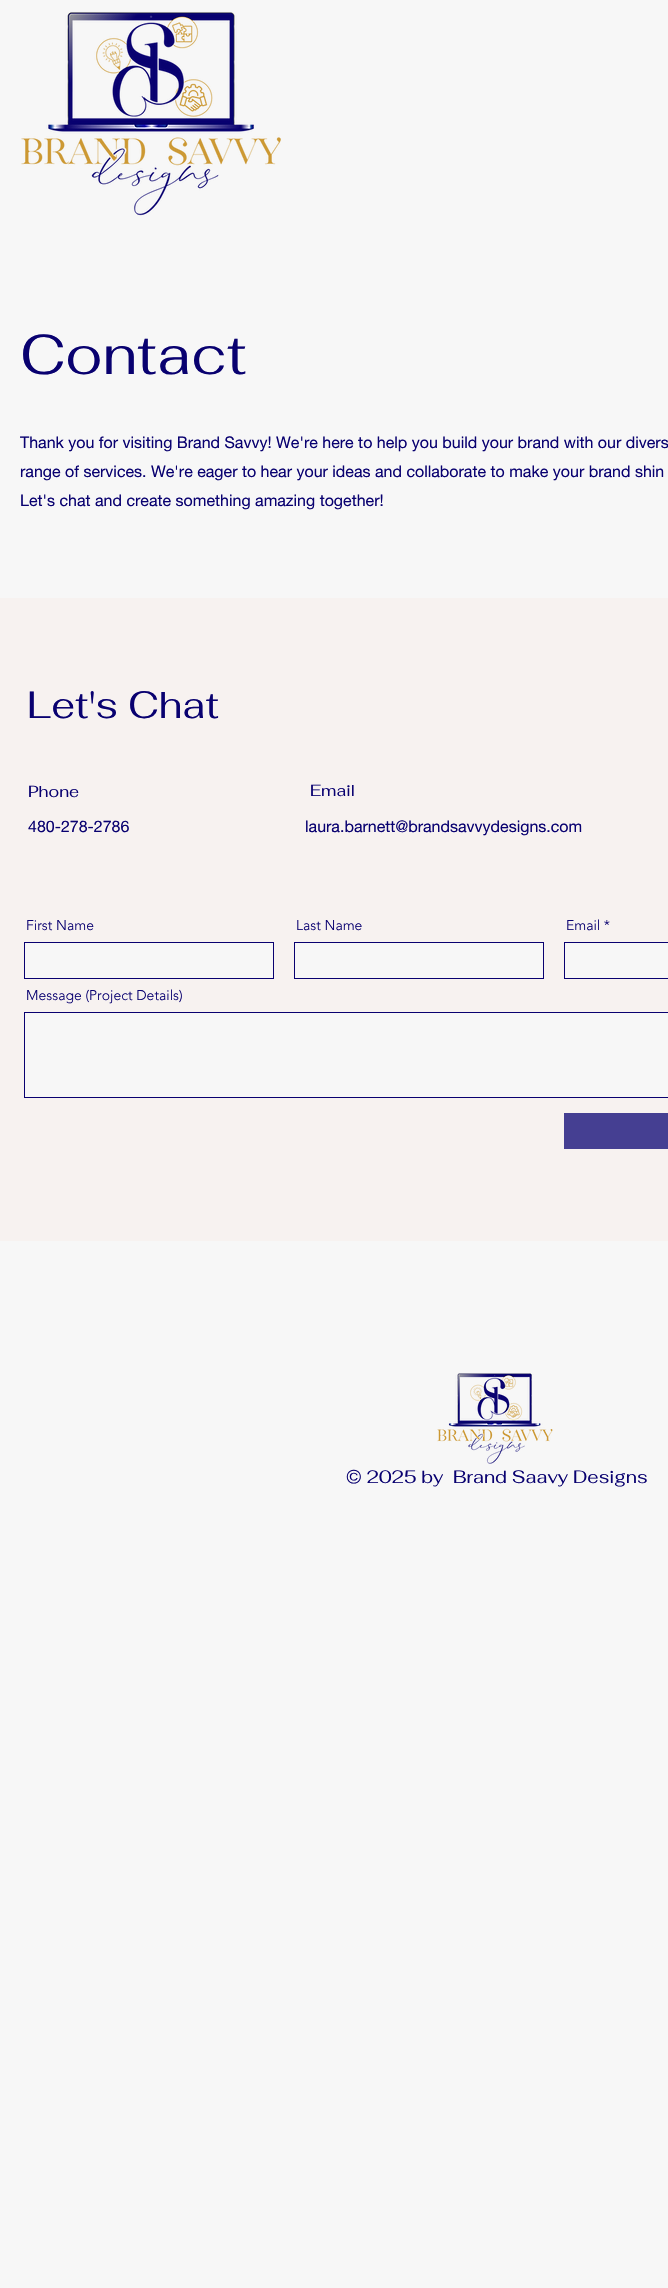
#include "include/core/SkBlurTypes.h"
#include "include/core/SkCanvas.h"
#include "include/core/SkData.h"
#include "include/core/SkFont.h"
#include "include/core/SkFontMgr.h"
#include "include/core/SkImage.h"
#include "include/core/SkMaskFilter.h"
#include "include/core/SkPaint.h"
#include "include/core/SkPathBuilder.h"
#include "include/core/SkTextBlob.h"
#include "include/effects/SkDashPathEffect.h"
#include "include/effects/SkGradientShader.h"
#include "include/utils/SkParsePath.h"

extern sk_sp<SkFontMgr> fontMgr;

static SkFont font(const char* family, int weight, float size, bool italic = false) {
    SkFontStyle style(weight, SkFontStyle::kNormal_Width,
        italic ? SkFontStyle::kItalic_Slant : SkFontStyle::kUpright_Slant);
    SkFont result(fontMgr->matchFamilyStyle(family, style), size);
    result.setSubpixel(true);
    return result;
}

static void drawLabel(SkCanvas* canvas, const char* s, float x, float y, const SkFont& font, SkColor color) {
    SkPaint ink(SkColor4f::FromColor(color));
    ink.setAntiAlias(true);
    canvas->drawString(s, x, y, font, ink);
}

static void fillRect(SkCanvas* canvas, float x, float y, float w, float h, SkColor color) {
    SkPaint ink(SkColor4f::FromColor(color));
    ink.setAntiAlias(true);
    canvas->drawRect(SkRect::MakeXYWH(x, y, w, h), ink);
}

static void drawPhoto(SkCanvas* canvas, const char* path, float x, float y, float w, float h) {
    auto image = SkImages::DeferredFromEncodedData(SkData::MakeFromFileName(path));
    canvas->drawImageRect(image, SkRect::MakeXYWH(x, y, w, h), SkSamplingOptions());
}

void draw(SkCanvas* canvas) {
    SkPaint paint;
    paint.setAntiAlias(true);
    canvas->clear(0xFFF7F7F7);
    drawPhoto(canvas, "assets/img1.png", 21, 12, 260, 204);
    SkFont font1 = font("Fahkwang", 400, 56);
    drawLabel(canvas, "Contact", 20, 374, font1, 0xFF090170);
    SkFont font2 = font("helvetica neue", 400, 16);
    drawLabel(canvas, "Thank you for visiting Brand Savvy! We're here to help you build your brand with our divers", 20, 448, font2, 0xFF090170);
    drawLabel(canvas, "range of services. We're eager to hear your ideas and collaborate to make your brand shin", 20, 477, font2, 0xFF090170);
    drawLabel(canvas, "Let's chat and create something amazing together!", 20, 506, font2, 0xFF090170);
    fillRect(canvas, 0, 598, 668, 643, 0xFFF7F2F0);
    SkFont font3 = font("Fahkwang", 400, 38);
    drawLabel(canvas, "Let's Chat", 27, 718, font3, 0xFF090170);
    SkFont font4 = font("Fahkwang", 400, 16);
    drawLabel(canvas, "Phone", 28, 797, font4, 0xFF090170);
    drawLabel(canvas, "Email", 310, 796, font4, 0xFF090170);
    drawLabel(canvas, "480-278-2786", 28, 832, font2, 0xFF090170);
    drawLabel(canvas, "laura.barnett@brandsavvydesigns.com", 305, 832, font2, 0xFF090170);
    SkFont font5 = font("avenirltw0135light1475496", 300, 14);
    drawLabel(canvas, "First Name", 26, 930, font5, 0xFF090170);
    paint.setColor(0xFFF7F7F7);
    canvas->drawRect(SkRect::MakeXYWH(24.5f, 942.5f, 249, 36), paint);
    paint.setStroke(true);
    paint.setStrokeWidth(1);
    paint.setColor(0xFF090170);
    canvas->drawRect(SkRect::MakeXYWH(24.5f, 942.5f, 249, 36), paint);
    drawLabel(canvas, "Last Name", 296, 930, font5, 0xFF090170);
    paint.setStroke(false);
    paint.setColor(0xFFF7F7F7);
    canvas->drawRect(SkRect::MakeXYWH(294.5f, 942.5f, 249, 36), paint);
    paint.setStroke(true);
    paint.setColor(0xFF090170);
    canvas->drawRect(SkRect::MakeXYWH(294.5f, 942.5f, 249, 36), paint);
    drawLabel(canvas, "Email *", 566, 930, font5, 0xFF090170);
    paint.setStroke(false);
    paint.setColor(0xFFF7F7F7);
    canvas->drawRect(SkRect::MakeXYWH(564.5f, 942.5f, 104, 36), paint);
    paint.setStroke(true);
    paint.setColor(0xFF090170);
    canvas->drawRect(SkRect::MakeXYWH(564.5f, 942.5f, 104, 36), paint);
    drawLabel(canvas, "Message (Project Details)", 26, 1000, font5, 0xFF090170);
    paint.setStroke(false);
    paint.setColor(0xFFF7F7F7);
    canvas->drawRect(SkRect::MakeXYWH(24.5f, 1012.5f, 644, 85), paint);
    paint.setStroke(true);
    paint.setColor(0xFF090170);
    canvas->drawRect(SkRect::MakeXYWH(24.5f, 1012.5f, 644, 85), paint);
    fillRect(canvas, 564, 1113, 104, 36, 0xFF453F92);
    drawPhoto(canvas, "assets/img2.png", 437, 1373, 116, 91);
    SkFont font6 = font("Fahkwang", 400, 18);
    drawLabel(canvas, "© 2025 by  Brand Saavy Designs", 346, 1483, font6, 0xFF090170);
}
